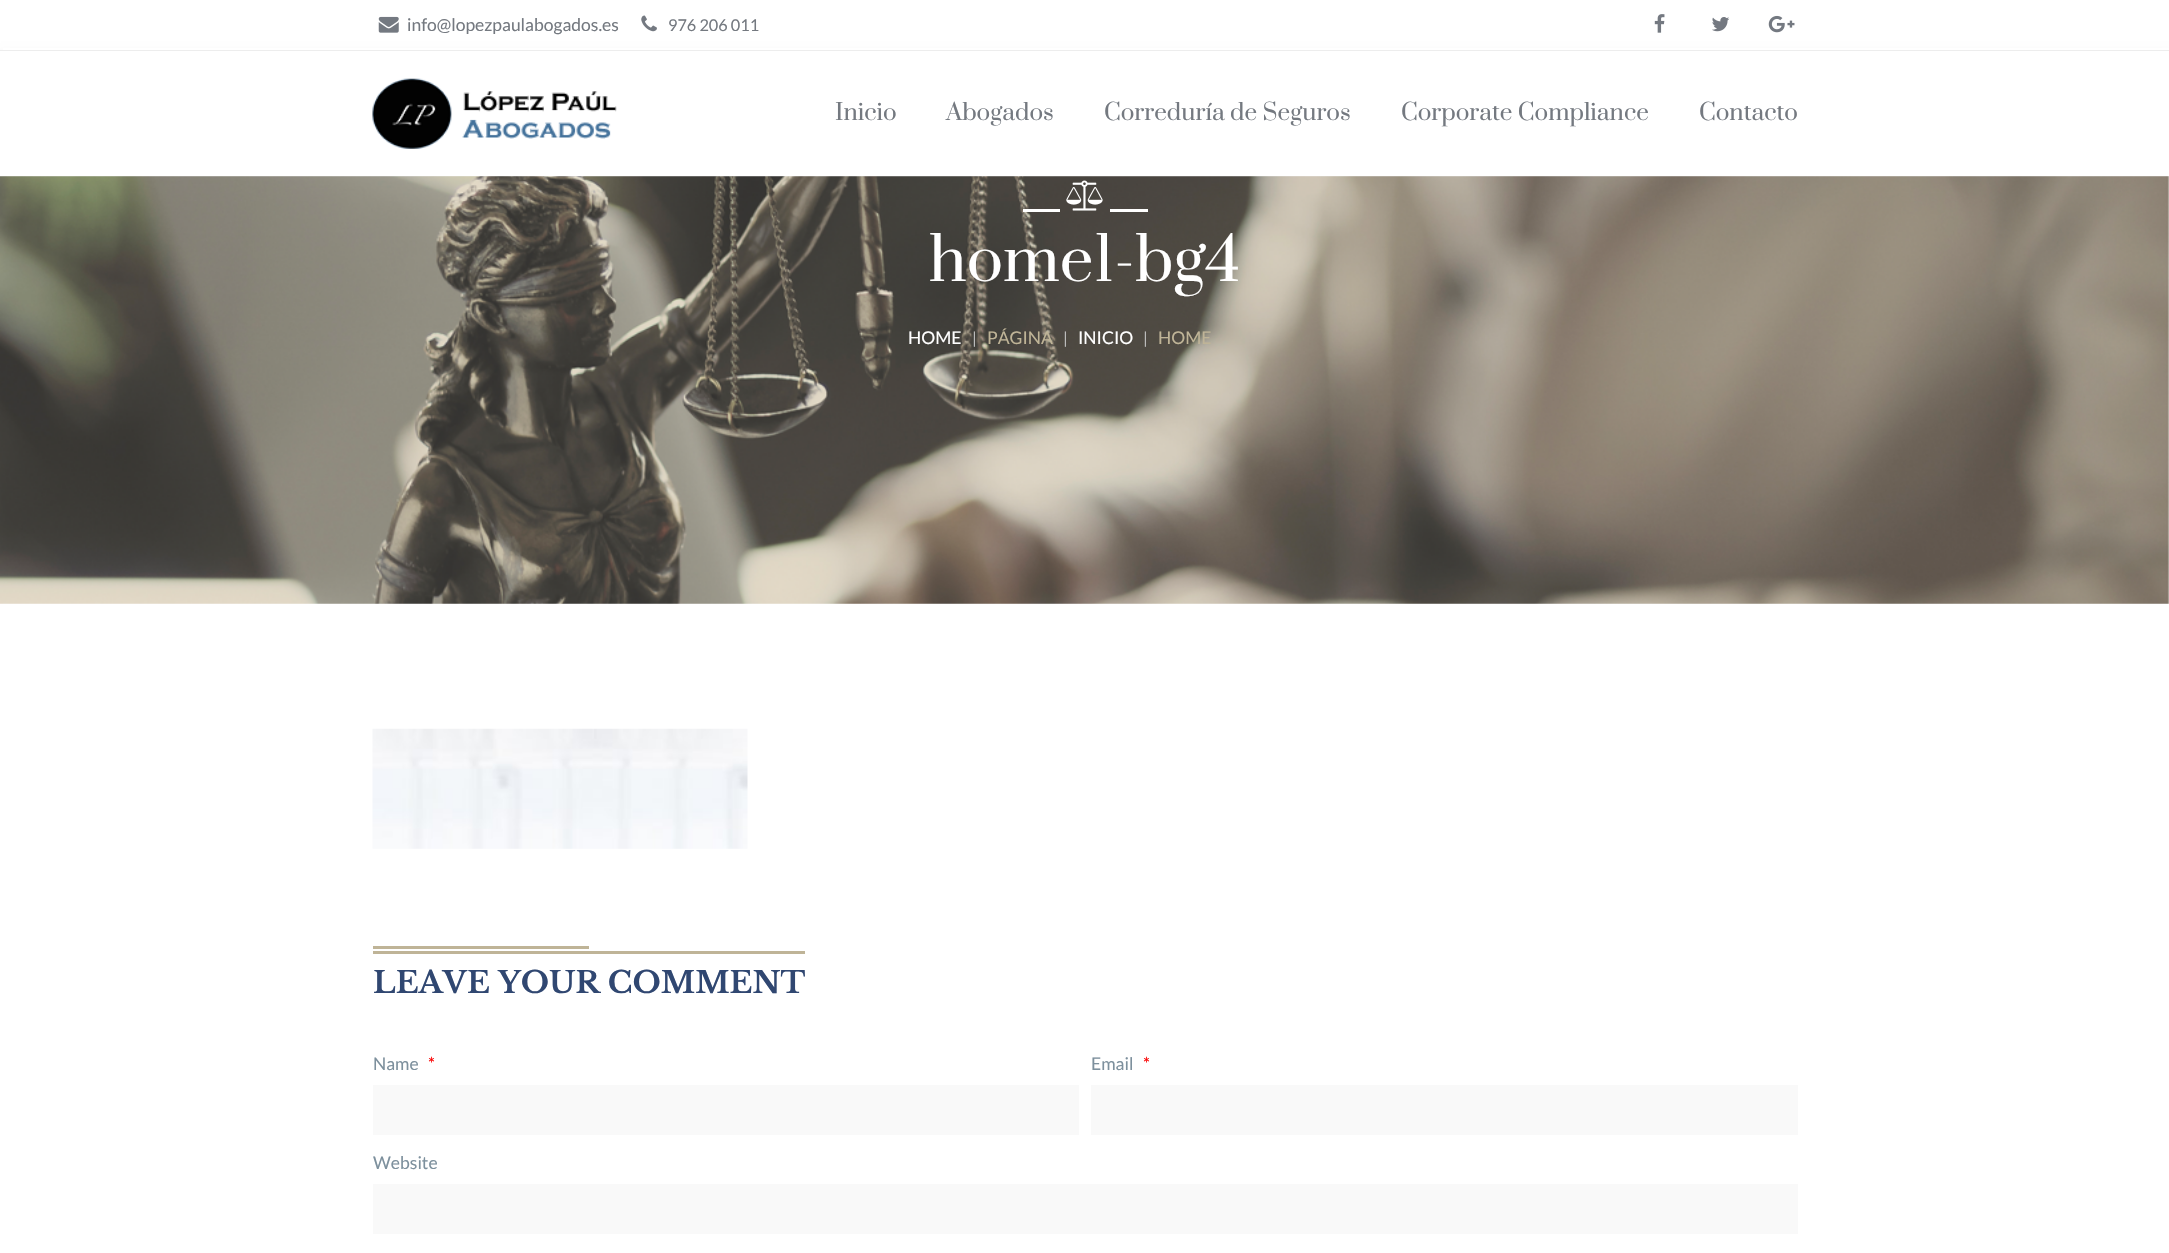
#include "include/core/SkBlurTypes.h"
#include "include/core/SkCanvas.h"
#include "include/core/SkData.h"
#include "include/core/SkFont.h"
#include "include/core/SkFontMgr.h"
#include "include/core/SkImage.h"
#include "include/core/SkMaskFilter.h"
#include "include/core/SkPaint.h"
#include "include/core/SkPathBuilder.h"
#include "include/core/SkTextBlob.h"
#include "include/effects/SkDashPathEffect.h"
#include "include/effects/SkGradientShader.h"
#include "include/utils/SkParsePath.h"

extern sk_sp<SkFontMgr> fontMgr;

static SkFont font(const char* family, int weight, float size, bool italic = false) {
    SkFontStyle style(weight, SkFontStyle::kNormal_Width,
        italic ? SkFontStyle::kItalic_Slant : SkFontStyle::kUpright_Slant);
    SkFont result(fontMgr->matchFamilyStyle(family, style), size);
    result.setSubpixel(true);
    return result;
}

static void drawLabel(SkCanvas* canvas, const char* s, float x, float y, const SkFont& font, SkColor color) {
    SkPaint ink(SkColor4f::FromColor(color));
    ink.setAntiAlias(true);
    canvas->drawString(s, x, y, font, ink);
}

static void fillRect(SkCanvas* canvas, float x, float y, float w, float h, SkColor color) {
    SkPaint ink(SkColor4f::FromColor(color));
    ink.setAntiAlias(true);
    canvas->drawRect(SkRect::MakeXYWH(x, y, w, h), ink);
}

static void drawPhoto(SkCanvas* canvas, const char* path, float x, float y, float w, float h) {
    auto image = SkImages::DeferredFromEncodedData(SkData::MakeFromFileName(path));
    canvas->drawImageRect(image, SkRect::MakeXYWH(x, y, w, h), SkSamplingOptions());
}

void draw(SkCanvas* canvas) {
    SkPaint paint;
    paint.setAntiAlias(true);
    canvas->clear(0xFFFFFFFF);
    paint.setColor(0x1A000000);
    paint.setMaskFilter(SkMaskFilter::MakeBlur(kNormal_SkBlurStyle, 4.5f));
    canvas->drawRect(SkRect::MakeXYWH(1, 54, 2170, 125), paint);
    paint.setMaskFilter(nullptr);
    fillRect(canvas, 3, 48, 2166, 2, 0xFFFFFFFF);
    fillRect(canvas, 0, 50, 2169, 1, 0xFFEDEDED);
    drawPhoto(canvas, "assets/img1.png", 378, 16, 21, 17);
    SkFont font1 = font("Lato", 400, 17.5f);
    drawLabel(canvas, "info@lopezpaulabogados.es", 407, 31, font1, 0xFF747980);
    drawPhoto(canvas, "assets/img2.png", 641, 15, 16, 17);
    SkFont font2 = font("Lato", 400, 16.25f);
    drawLabel(canvas, "976 206 011", 668, 31, font2, 0xFF747980);
    drawPhoto(canvas, "assets/img3.png", 1654, 14, 11, 19);
    drawPhoto(canvas, "assets/img4.png", 1712, 17, 18, 15);
    drawPhoto(canvas, "assets/img5.png", 1768, 15, 27, 18);
    fillRect(canvas, 0, 51, 2169, 125, 0xFFFFFFFF);
    drawPhoto(canvas, "assets/img6.png", 372, 78, 245, 71);
    SkFont font3 = font("Prata", 400, 22.5f);
    drawLabel(canvas, "Inicio", 835, 120, font3, 0xFF747980);
    drawLabel(canvas, "Abogados", 946, 120, font3, 0xFF747980);
    drawLabel(canvas, "Correduría de Seguros", 1104, 120, font3, 0xFF747980);
    drawLabel(canvas, "Corporate Compliance", 1401, 120, font3, 0xFF747980);
    drawLabel(canvas, "Contacto", 1699, 120, font3, 0xFF747980);
    drawPhoto(canvas, "assets/img7.png", 0, 176, 2169, 428);
    fillRect(canvas, 1023, 209, 37, 3, 0xFFFFFFFF);
    drawPhoto(canvas, "assets/img8.png", 1066, 180, 37, 31);
    fillRect(canvas, 1110, 209, 38, 3, 0xFFFFFFFF);
    SkFont font4 = font("Prata", 400, 60);
    drawLabel(canvas, "home1-bg4", 929, 281, font4, 0xFFFFFFFF);
    drawLabel(canvas, "HOME", 908, 344, font1, 0xFFFFFFFF);
    drawLabel(canvas, "|", 972, 344, font2, 0xFFBCBCBC);
    drawLabel(canvas, "PÁGINA", 987, 344, font1, 0xFFBFB497);
    drawLabel(canvas, "|", 1063, 344, font2, 0xFFBCBCBC);
    drawLabel(canvas, "INICIO", 1078, 344, font1, 0xFFFFFFFF);
    drawLabel(canvas, "|", 1143, 344, font2, 0xFFBCBCBC);
    drawLabel(canvas, "HOME", 1158, 344, font1, 0xFFBFB497);
    drawPhoto(canvas, "assets/img9.png", 372, 728, 376, 121);
    fillRect(canvas, 373, 951, 432, 3, 0xFFBFB497);
    fillRect(canvas, 373, 946, 216, 3, 0xFFBFB497);
    SkFont font5 = font("Libre Baskerville", 700, 30);
    drawLabel(canvas, "LEAVE YOUR COMMENT", 373, 993, font5, 0xFF304771);
    drawLabel(canvas, "Name", 373, 1070, font1, 0xFF7D909D);
    drawLabel(canvas, "*", 428, 1070, font1, 0xFFFB0000);
    fillRect(canvas, 373, 1085, 706, 50, 0xFFF9F9F9);
    drawLabel(canvas, "Email", 1091, 1070, font1, 0xFF7D909D);
    drawLabel(canvas, "*", 1143, 1070, font1, 0xFFFB0000);
    fillRect(canvas, 1091, 1085, 707, 50, 0xFFF9F9F9);
    drawLabel(canvas, "Website", 373, 1169, font1, 0xFF7D909D);
    fillRect(canvas, 373, 1184, 1425, 50, 0xFFF9F9F9);
}
